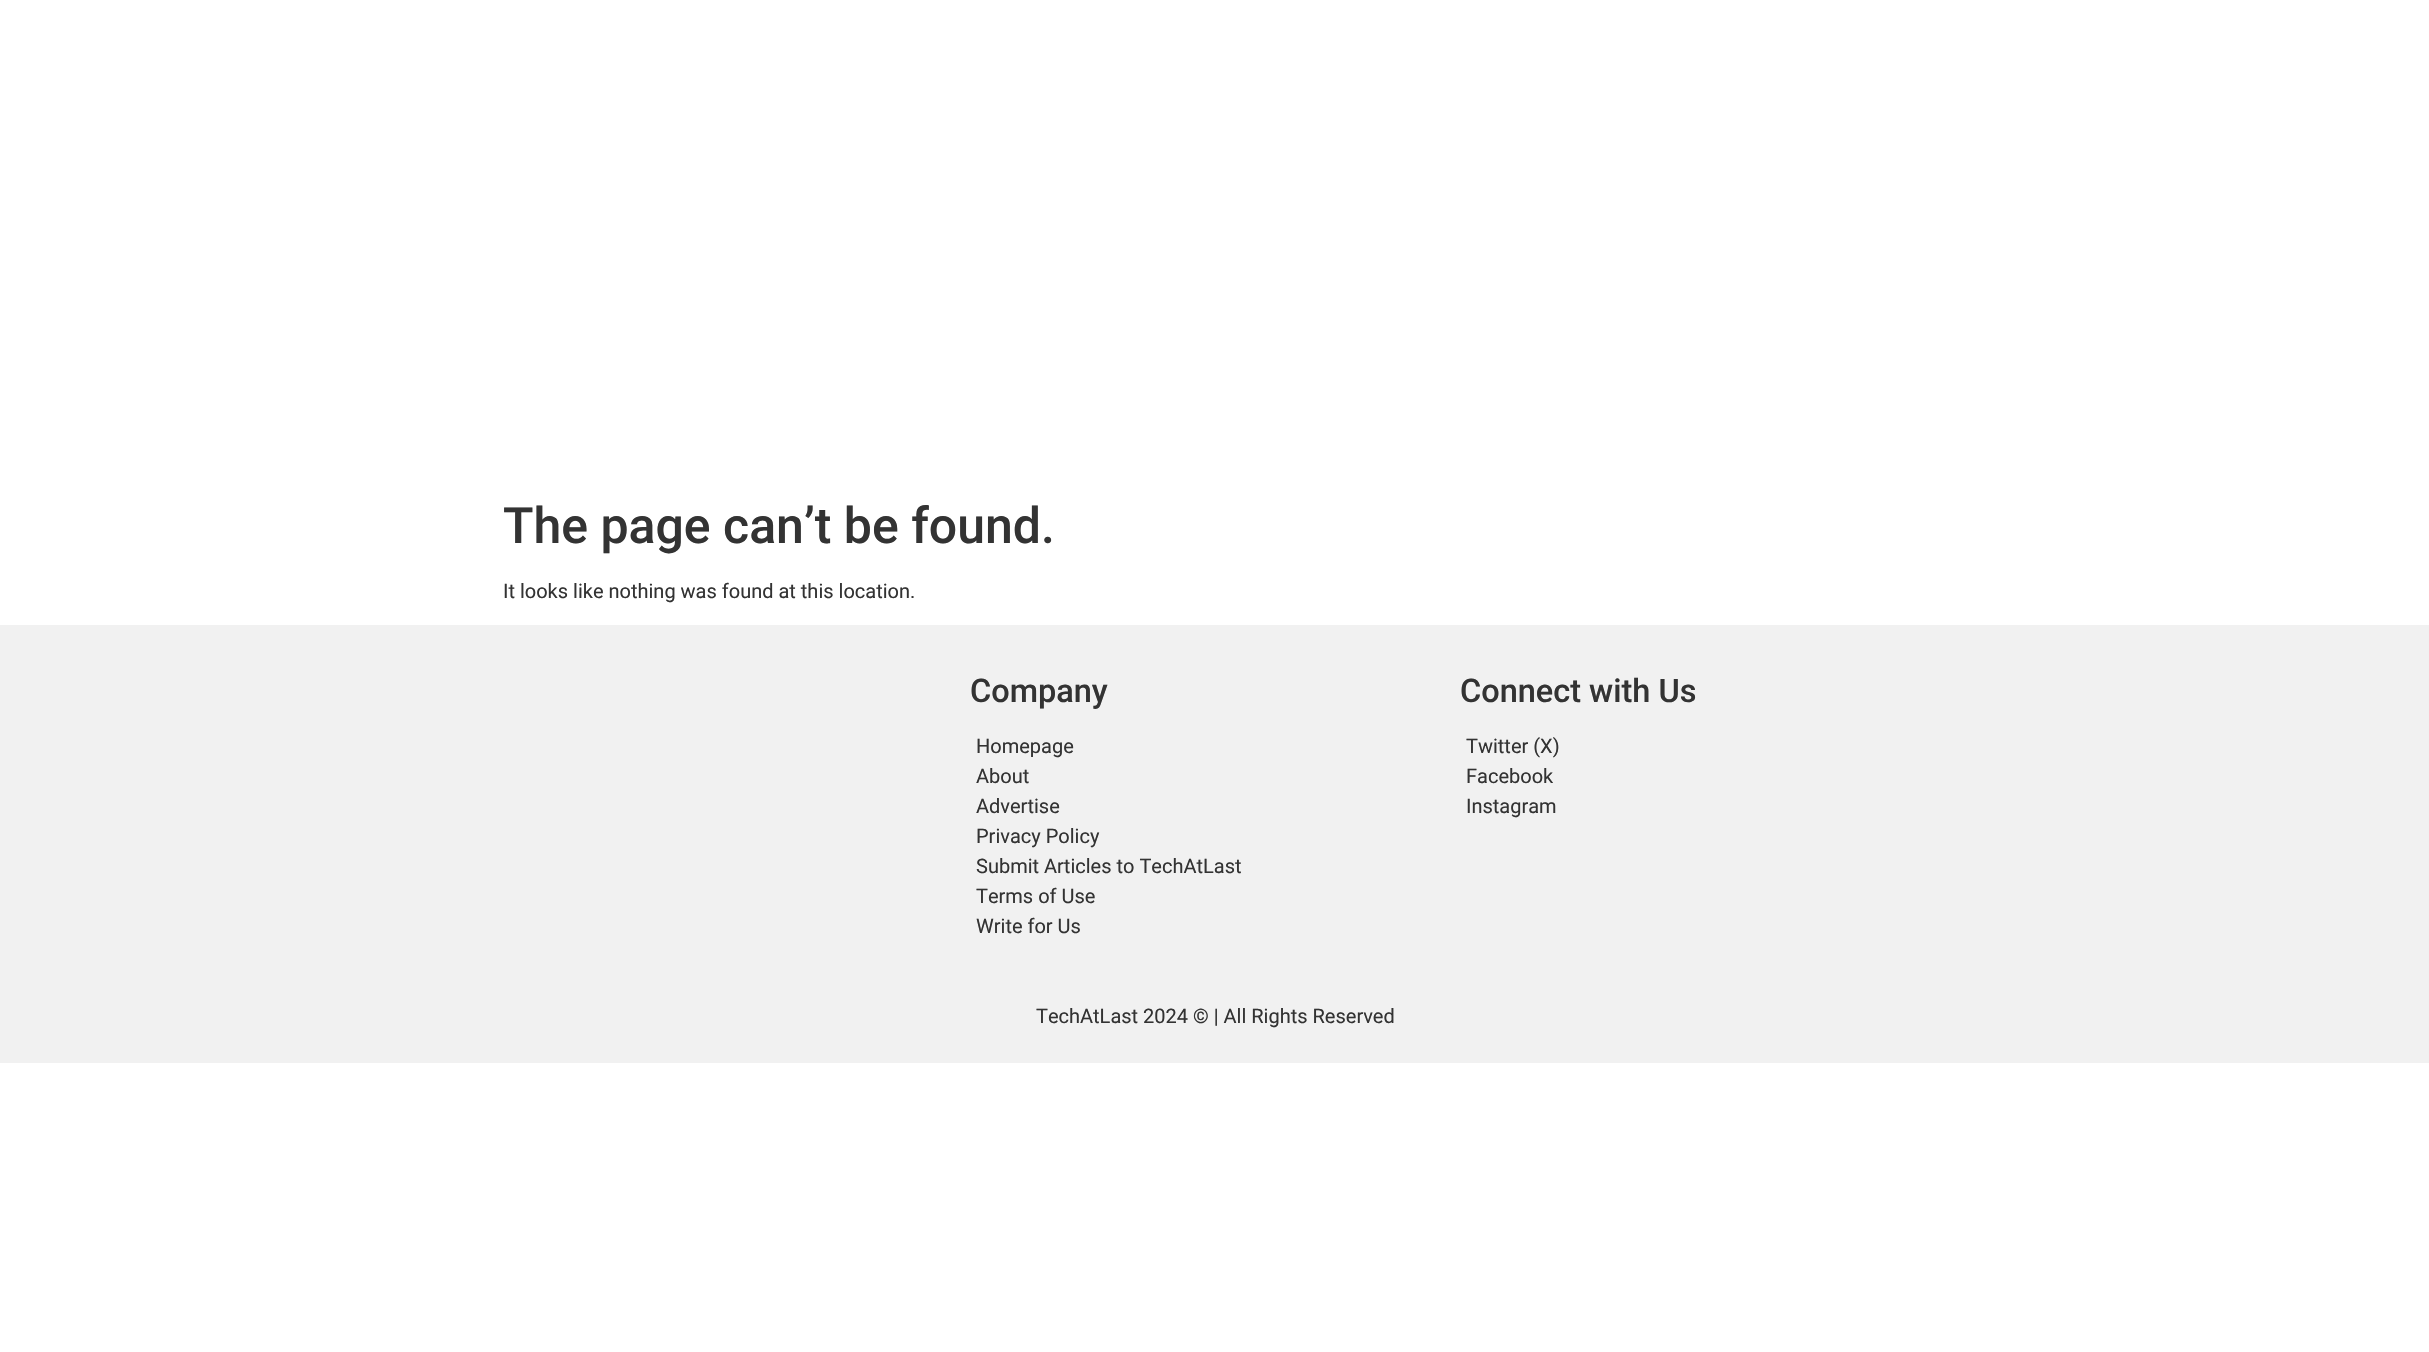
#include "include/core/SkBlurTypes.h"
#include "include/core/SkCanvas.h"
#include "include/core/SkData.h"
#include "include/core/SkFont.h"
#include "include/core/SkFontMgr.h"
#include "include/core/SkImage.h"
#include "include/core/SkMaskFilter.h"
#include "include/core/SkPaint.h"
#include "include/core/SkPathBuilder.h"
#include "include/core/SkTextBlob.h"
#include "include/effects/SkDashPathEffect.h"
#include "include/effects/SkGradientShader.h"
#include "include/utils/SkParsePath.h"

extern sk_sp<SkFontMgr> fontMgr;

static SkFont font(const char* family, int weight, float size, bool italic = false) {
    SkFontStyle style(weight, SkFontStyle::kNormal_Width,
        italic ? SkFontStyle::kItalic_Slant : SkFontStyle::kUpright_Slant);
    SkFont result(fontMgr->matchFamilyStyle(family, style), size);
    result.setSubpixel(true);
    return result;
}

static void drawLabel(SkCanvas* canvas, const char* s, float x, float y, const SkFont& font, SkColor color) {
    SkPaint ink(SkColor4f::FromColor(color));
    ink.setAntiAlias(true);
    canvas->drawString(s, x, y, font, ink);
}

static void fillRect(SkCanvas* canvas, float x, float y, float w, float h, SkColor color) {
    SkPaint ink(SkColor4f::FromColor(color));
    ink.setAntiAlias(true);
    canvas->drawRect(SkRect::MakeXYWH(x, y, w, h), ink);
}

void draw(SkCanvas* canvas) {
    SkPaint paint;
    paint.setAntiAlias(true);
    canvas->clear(0xFFFFFFFF);
    SkFont font1 = font("Roboto", 500, 50);
    drawLabel(canvas, "The page can’t be found.", 503, 543, font1, 0xFF333333);
    SkFont font2 = font("Roboto", 400, 20);
    drawLabel(canvas, "It looks like nothing was found at this location.", 503, 598, font2, 0xFF333333);
    fillRect(canvas, 0, 625, 2429, 438, 0xFFF1F1F1);
    SkFont font3 = font("Roboto", 500, 32.5f);
    drawLabel(canvas, "Company", 970, 702, font3, 0xFF333333);
    drawLabel(canvas, "Homepage", 976, 753, font2, 0xFF333333);
    drawLabel(canvas, "About", 976, 783, font2, 0xFF333333);
    drawLabel(canvas, "Advertise", 976, 813, font2, 0xFF333333);
    drawLabel(canvas, "Privacy Policy", 976, 843, font2, 0xFF333333);
    drawLabel(canvas, "Submit Articles to TechAtLast", 976, 873, font2, 0xFF333333);
    drawLabel(canvas, "Terms of Use", 976, 903, font2, 0xFF333333);
    drawLabel(canvas, "Write for Us", 976, 933, font2, 0xFF333333);
    drawLabel(canvas, "Connect with Us", 1460, 702, font3, 0xFF333333);
    drawLabel(canvas, "Twitter (X)", 1466, 753, font2, 0xFF333333);
    drawLabel(canvas, "Facebook", 1466, 783, font2, 0xFF333333);
    drawLabel(canvas, "Instagram", 1466, 813, font2, 0xFF333333);
    drawLabel(canvas, "TechAtLast 2024 © | All Rights Reserved", 1036, 1023, font2, 0xFF333333);
}
